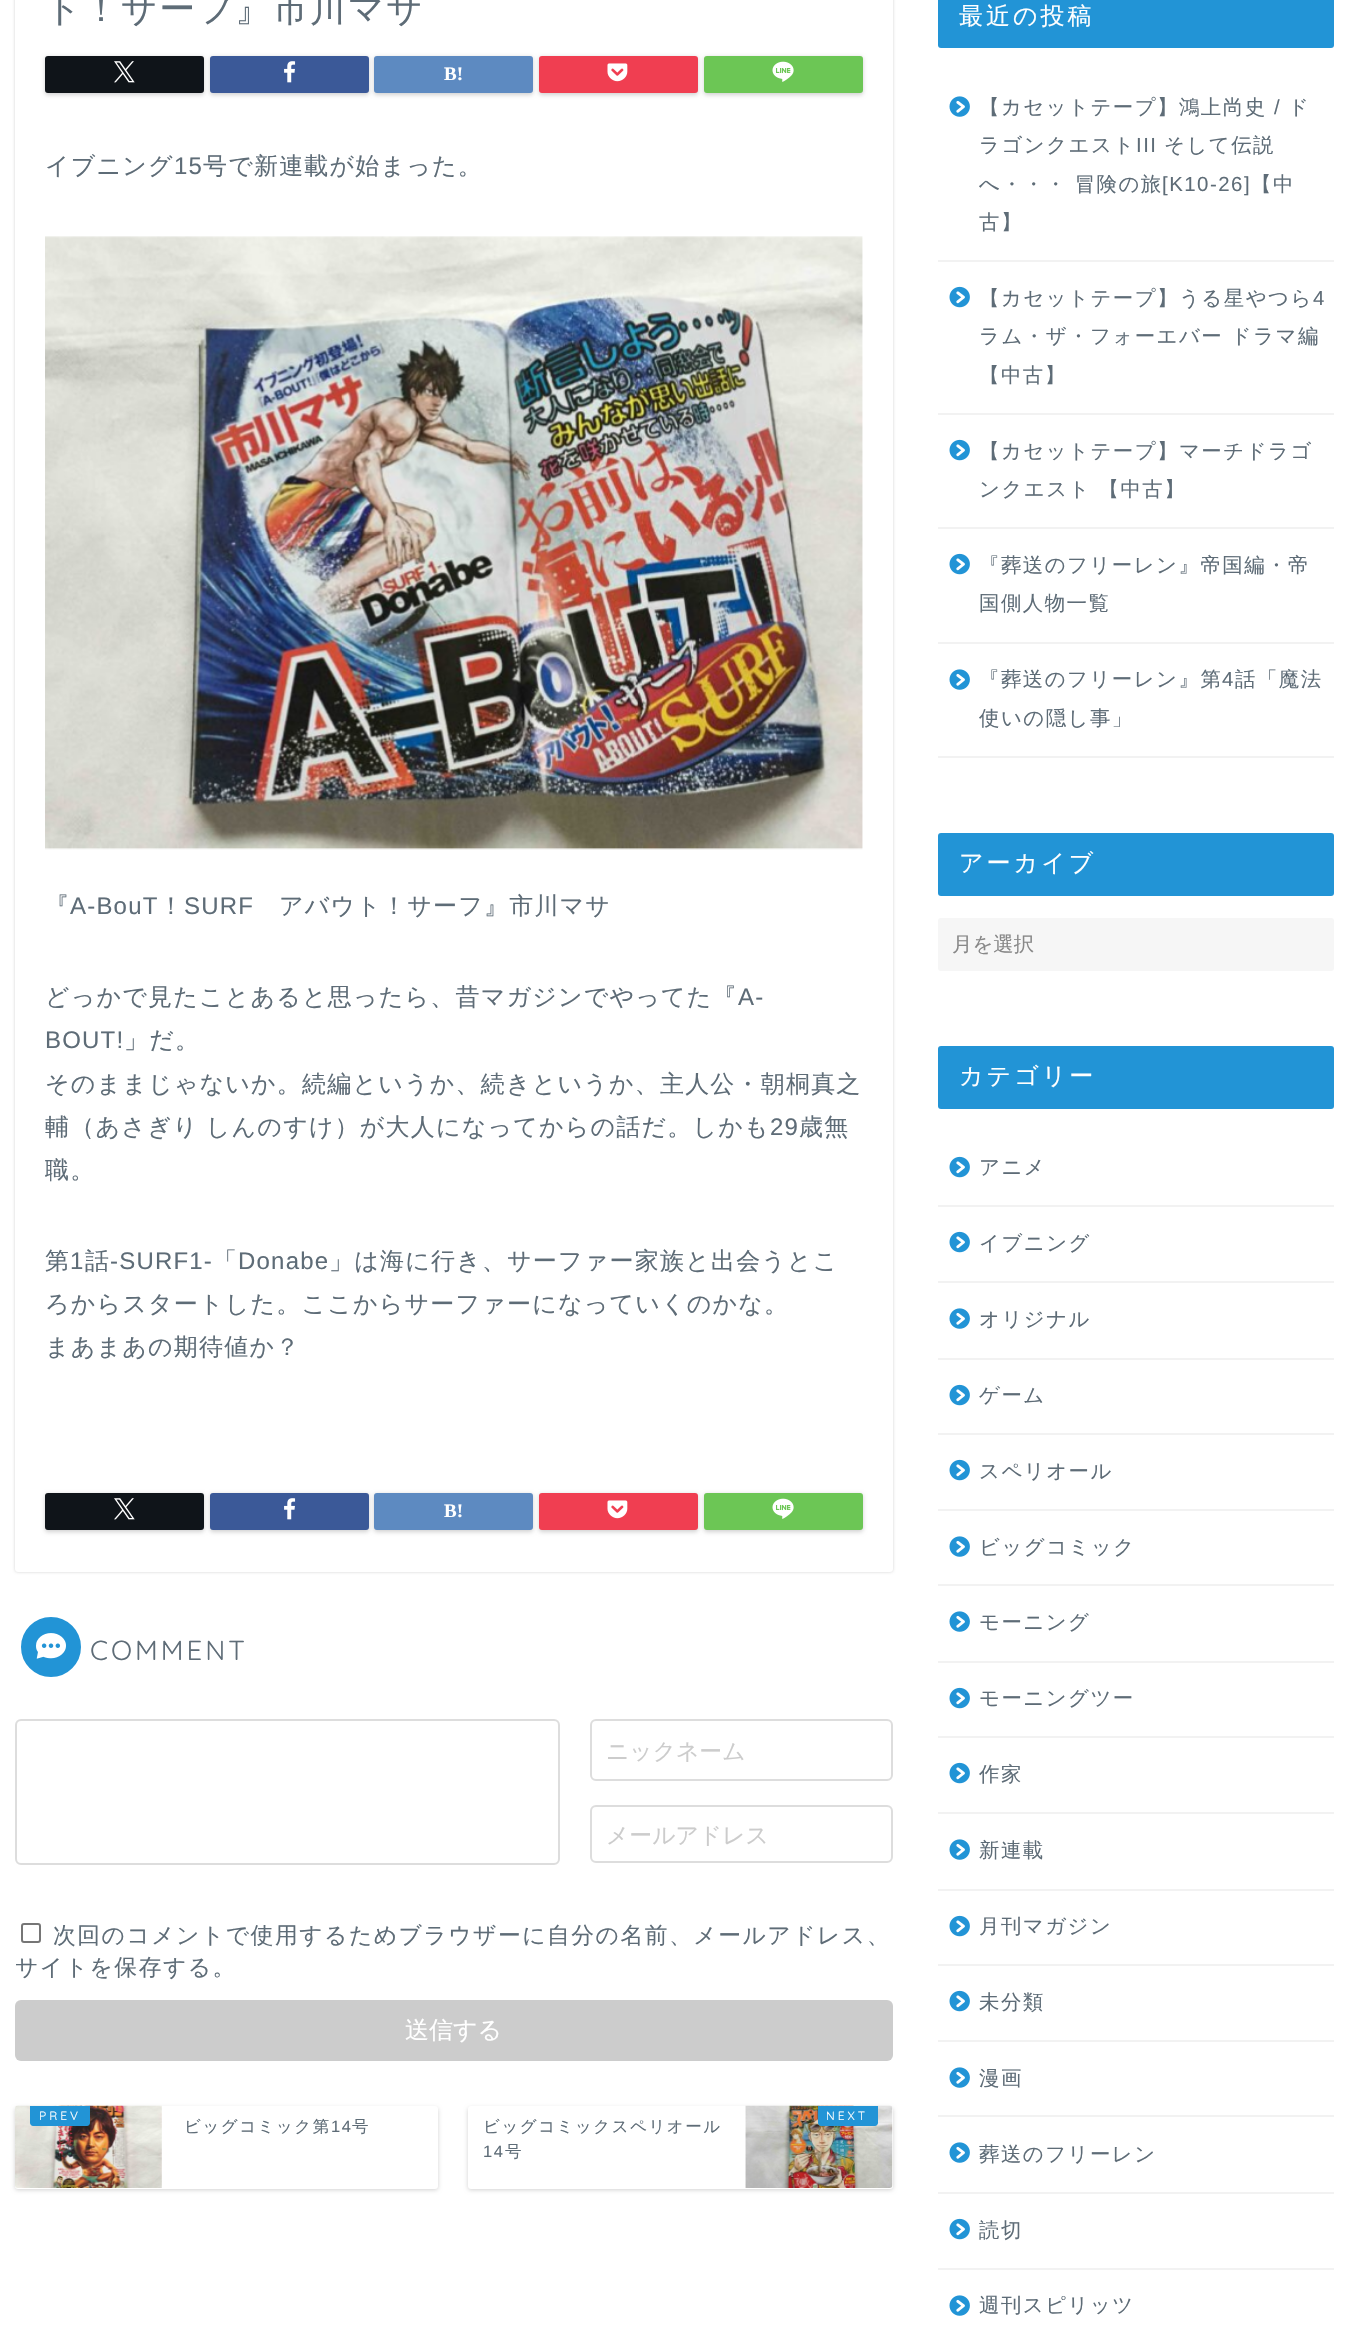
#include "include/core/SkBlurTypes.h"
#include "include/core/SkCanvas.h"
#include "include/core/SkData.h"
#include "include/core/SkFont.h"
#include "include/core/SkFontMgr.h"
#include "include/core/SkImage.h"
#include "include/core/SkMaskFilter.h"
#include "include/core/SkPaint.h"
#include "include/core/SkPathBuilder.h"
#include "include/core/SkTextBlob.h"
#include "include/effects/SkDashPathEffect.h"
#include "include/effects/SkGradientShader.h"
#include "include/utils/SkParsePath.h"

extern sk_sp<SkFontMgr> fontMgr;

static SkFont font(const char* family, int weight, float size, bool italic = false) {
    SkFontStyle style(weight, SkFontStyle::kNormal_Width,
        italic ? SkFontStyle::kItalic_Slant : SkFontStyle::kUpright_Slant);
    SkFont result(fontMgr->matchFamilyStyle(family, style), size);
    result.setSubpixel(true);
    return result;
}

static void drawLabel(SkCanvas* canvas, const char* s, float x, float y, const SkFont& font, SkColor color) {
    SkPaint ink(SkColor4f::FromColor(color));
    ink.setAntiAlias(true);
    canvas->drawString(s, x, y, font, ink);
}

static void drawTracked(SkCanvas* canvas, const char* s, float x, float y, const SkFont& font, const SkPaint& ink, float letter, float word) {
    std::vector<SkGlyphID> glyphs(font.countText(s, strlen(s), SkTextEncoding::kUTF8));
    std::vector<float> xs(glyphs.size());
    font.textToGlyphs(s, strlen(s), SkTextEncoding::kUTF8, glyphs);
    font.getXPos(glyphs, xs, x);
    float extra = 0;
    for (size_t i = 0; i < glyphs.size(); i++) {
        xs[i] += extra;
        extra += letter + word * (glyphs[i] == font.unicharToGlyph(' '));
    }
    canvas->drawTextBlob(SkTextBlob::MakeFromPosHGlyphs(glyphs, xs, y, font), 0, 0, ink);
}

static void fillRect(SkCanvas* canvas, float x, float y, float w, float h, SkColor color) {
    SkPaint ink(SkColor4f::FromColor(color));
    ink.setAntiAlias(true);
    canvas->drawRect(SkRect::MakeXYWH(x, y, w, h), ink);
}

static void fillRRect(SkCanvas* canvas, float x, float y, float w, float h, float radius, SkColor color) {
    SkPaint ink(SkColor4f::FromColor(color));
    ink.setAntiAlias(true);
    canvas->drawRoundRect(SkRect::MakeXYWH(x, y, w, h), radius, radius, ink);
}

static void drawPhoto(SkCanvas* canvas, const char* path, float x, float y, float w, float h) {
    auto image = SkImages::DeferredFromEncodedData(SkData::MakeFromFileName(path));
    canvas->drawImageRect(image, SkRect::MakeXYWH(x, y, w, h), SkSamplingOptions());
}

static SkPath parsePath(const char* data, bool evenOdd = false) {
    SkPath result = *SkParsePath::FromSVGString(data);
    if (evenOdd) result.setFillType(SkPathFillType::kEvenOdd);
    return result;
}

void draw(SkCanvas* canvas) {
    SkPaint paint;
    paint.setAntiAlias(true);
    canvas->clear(0xFFFFFFFF);
    paint.setColor(0x2E000000);
    paint.setMaskFilter(SkMaskFilter::MakeBlur(kNormal_SkBlurStyle, 1.5f));
    canvas->drawRoundRect(SkRect::MakeXYWH(15, -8, 878, 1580), 3, 3, paint);
    paint.setMaskFilter(nullptr);
    fillRRect(canvas, 15, -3, 878, 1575, 3, 0xFFFFFFFF);
    SkFont font1 = font("WenQuanYi Zen Hei", 500, 36);
    paint.setColor(0xFF5E6C77);
    drawTracked(canvas, "ト！サーフ』市川マサ", 45, 21, font1, paint, 1.5f, 0);
    paint.setColor(0x2E000000);
    paint.setMaskFilter(SkMaskFilter::MakeBlur(kNormal_SkBlurStyle, 2));
    canvas->drawRoundRect(SkRect::MakeXYWH(45, 57, 159, 38), 3, 3, paint);
    paint.setMaskFilter(nullptr);
    paint.setColor(0xFF0F1419);
    canvas->drawRoundRect(SkRect::MakeXYWH(46.5f, 57.5f, 156, 34), 1.5f, 1.5f, paint);
    paint.setStroke(true);
    paint.setStrokeWidth(3);
    canvas->drawRoundRect(SkRect::MakeXYWH(46.5f, 57.5f, 156, 34), 1.5f, 1.5f, paint);
    drawPhoto(canvas, "assets/img1.png", 114, 61, 21, 22);
    paint.setStroke(false);
    paint.setColor(0x2E000000);
    paint.setMaskFilter(SkMaskFilter::MakeBlur(kNormal_SkBlurStyle, 2));
    canvas->drawRoundRect(SkRect::MakeXYWH(210, 57, 159, 38), 3, 3, paint);
    paint.setMaskFilter(nullptr);
    paint.setColor(0xFF3B5998);
    canvas->drawRoundRect(SkRect::MakeXYWH(211.5f, 57.5f, 156, 34), 1.5f, 1.5f, paint);
    paint.setStroke(true);
    canvas->drawRoundRect(SkRect::MakeXYWH(211.5f, 57.5f, 156, 34), 1.5f, 1.5f, paint);
    drawPhoto(canvas, "assets/img2.png", 284, 61, 12, 22);
    paint.setStroke(false);
    paint.setColor(0x2E000000);
    paint.setMaskFilter(SkMaskFilter::MakeBlur(kNormal_SkBlurStyle, 2));
    canvas->drawRoundRect(SkRect::MakeXYWH(374, 57, 159, 38), 3, 3, paint);
    paint.setMaskFilter(nullptr);
    paint.setColor(0xFF5D8AC1);
    canvas->drawRoundRect(SkRect::MakeXYWH(375.5f, 57.5f, 156, 34), 1.5f, 1.5f, paint);
    paint.setStroke(true);
    canvas->drawRoundRect(SkRect::MakeXYWH(375.5f, 57.5f, 156, 34), 1.5f, 1.5f, paint);
    SkFont font2 = font("Liberation Serif", 700, 19);
    drawLabel(canvas, "B!", 444, 80, font2, 0xFFFFFFFF);
    paint.setStroke(false);
    paint.setColor(0x2E000000);
    paint.setMaskFilter(SkMaskFilter::MakeBlur(kNormal_SkBlurStyle, 2));
    canvas->drawRoundRect(SkRect::MakeXYWH(539, 57, 159, 38), 3, 3, paint);
    paint.setMaskFilter(nullptr);
    paint.setColor(0xFFF03E51);
    canvas->drawRoundRect(SkRect::MakeXYWH(540.5f, 57.5f, 156, 34), 1.5f, 1.5f, paint);
    paint.setStroke(true);
    canvas->drawRoundRect(SkRect::MakeXYWH(540.5f, 57.5f, 156, 34), 1.5f, 1.5f, paint);
    drawPhoto(canvas, "assets/img3.png", 607, 63, 21, 19);
    paint.setStroke(false);
    paint.setColor(0x2E000000);
    paint.setMaskFilter(SkMaskFilter::MakeBlur(kNormal_SkBlurStyle, 2));
    canvas->drawRoundRect(SkRect::MakeXYWH(704, 57, 159, 38), 3, 3, paint);
    paint.setMaskFilter(nullptr);
    paint.setColor(0xFF6CC655);
    canvas->drawRoundRect(SkRect::MakeXYWH(705.5f, 57.5f, 156, 34), 1.5f, 1.5f, paint);
    paint.setStroke(true);
    canvas->drawRoundRect(SkRect::MakeXYWH(705.5f, 57.5f, 156, 34), 1.5f, 1.5f, paint);
    drawPhoto(canvas, "assets/img4.png", 772, 61, 22, 21);
    SkFont font3 = font("WenQuanYi Zen Hei", 500, 24);
    paint.setStroke(false);
    paint.setColor(0xFF5E6C77);
    drawTracked(canvas, "イブニング", 45, 174, font3, paint, 1.2f, 0);
    SkFont font4 = font("Liberation Sans", 400, 24);
    drawTracked(canvas, "15", 174, 174, font4, paint, 1.2f, 0);
    drawTracked(canvas, "号で新連載が始まった。", 203, 174, font3, paint, 1.2f, 0);
    drawPhoto(canvas, "assets/img5.png", 45, 236, 818, 614);
    drawTracked(canvas, "『", 45, 914, font3, paint, 1.2f, 0);
    drawTracked(canvas, "A-BouT", 70, 914, font4, paint, 1.2f, 0);
    drawTracked(canvas, "！", 159, 914, font3, paint, 1.2f, 0);
    drawTracked(canvas, "SURF", 184, 914, font4, paint, 1.2f, 0);
    drawTracked(canvas, "アバウト！サーフ』市川マサ", 279, 914, font3, paint, 1.2f, 0);
    drawTracked(canvas, "どっかで見たことあると思ったら、昔マガジンでやってた『", 45, 1005, font3, paint, 1.2f, 0);
    drawTracked(canvas, "A-", 738, 1005, font4, paint, 1.2f, 0);
    drawTracked(canvas, "BOUT!", 45, 1048, font4, paint, 1.2f, 0);
    drawTracked(canvas, "」だ。", 124, 1048, font3, paint, 1.2f, 0);
    drawTracked(canvas, "そのままじゃないか。続編というか、続きというか、主人公・朝桐真之", 45, 1092, font3, paint, 1.2f, 0);
    drawTracked(canvas, "輔（あさぎり しんのすけ）が大人になってからの話だ。しかも", 45, 1135, font3, paint, 1.2f, -1);
    drawTracked(canvas, "29", 770, 1135, font4, paint, 1.2f, 0);
    drawTracked(canvas, "歳無", 799, 1135, font3, paint, 1.2f, 0);
    drawTracked(canvas, "職。", 45, 1178, font3, paint, 1.2f, 0);
    drawTracked(canvas, "第", 45, 1269, font3, paint, 1.2f, 0);
    drawTracked(canvas, "1", 70, 1269, font4, paint, 1.2f, 0);
    drawTracked(canvas, "話", 85, 1269, font3, paint, 1.2f, 0);
    drawTracked(canvas, "-SURF1-", 110, 1269, font4, paint, 1.2f, 0);
    drawTracked(canvas, "「", 213, 1269, font3, paint, 1.2f, 0);
    drawTracked(canvas, "Donabe", 238, 1269, font4, paint, 1.2f, 0);
    drawTracked(canvas, "」は海に行き、サーファー家族と出会うとこ", 329, 1269, font3, paint, 1.2f, 0);
    drawTracked(canvas, "ろからスタートした。ここからサーファーになっていくのかな。", 45, 1312, font3, paint, 1.2f, 0);
    drawTracked(canvas, "まあまあの期待値か？", 45, 1355, font3, paint, 1.2f, 0);
    paint.setColor(0x2E000000);
    paint.setMaskFilter(SkMaskFilter::MakeBlur(kNormal_SkBlurStyle, 2));
    canvas->drawRoundRect(SkRect::MakeXYWH(45, 1494, 159, 38), 3, 3, paint);
    paint.setMaskFilter(nullptr);
    paint.setColor(0xFF0F1419);
    canvas->drawRoundRect(SkRect::MakeXYWH(46.5f, 1494.5f, 156, 34), 1.5f, 1.5f, paint);
    paint.setStroke(true);
    canvas->drawRoundRect(SkRect::MakeXYWH(46.5f, 1494.5f, 156, 34), 1.5f, 1.5f, paint);
    drawPhoto(canvas, "assets/img1.png", 114, 1498, 21, 22);
    paint.setStroke(false);
    paint.setColor(0x2E000000);
    paint.setMaskFilter(SkMaskFilter::MakeBlur(kNormal_SkBlurStyle, 2));
    canvas->drawRoundRect(SkRect::MakeXYWH(210, 1494, 159, 38), 3, 3, paint);
    paint.setMaskFilter(nullptr);
    paint.setColor(0xFF3B5998);
    canvas->drawRoundRect(SkRect::MakeXYWH(211.5f, 1494.5f, 156, 34), 1.5f, 1.5f, paint);
    paint.setStroke(true);
    canvas->drawRoundRect(SkRect::MakeXYWH(211.5f, 1494.5f, 156, 34), 1.5f, 1.5f, paint);
    drawPhoto(canvas, "assets/img2.png", 284, 1498, 12, 22);
    paint.setStroke(false);
    paint.setColor(0x2E000000);
    paint.setMaskFilter(SkMaskFilter::MakeBlur(kNormal_SkBlurStyle, 2));
    canvas->drawRoundRect(SkRect::MakeXYWH(374, 1494, 159, 38), 3, 3, paint);
    paint.setMaskFilter(nullptr);
    paint.setColor(0xFF5D8AC1);
    canvas->drawRoundRect(SkRect::MakeXYWH(375.5f, 1494.5f, 156, 34), 1.5f, 1.5f, paint);
    paint.setStroke(true);
    canvas->drawRoundRect(SkRect::MakeXYWH(375.5f, 1494.5f, 156, 34), 1.5f, 1.5f, paint);
    drawLabel(canvas, "B!", 444, 1517, font2, 0xFFFFFFFF);
    paint.setStroke(false);
    paint.setColor(0x2E000000);
    paint.setMaskFilter(SkMaskFilter::MakeBlur(kNormal_SkBlurStyle, 2));
    canvas->drawRoundRect(SkRect::MakeXYWH(539, 1494, 159, 38), 3, 3, paint);
    paint.setMaskFilter(nullptr);
    paint.setColor(0xFFF03E51);
    canvas->drawRoundRect(SkRect::MakeXYWH(540.5f, 1494.5f, 156, 34), 1.5f, 1.5f, paint);
    paint.setStroke(true);
    canvas->drawRoundRect(SkRect::MakeXYWH(540.5f, 1494.5f, 156, 34), 1.5f, 1.5f, paint);
    drawPhoto(canvas, "assets/img3.png", 607, 1500, 21, 19);
    paint.setStroke(false);
    paint.setColor(0x2E000000);
    paint.setMaskFilter(SkMaskFilter::MakeBlur(kNormal_SkBlurStyle, 2));
    canvas->drawRoundRect(SkRect::MakeXYWH(704, 1494, 159, 38), 3, 3, paint);
    paint.setMaskFilter(nullptr);
    paint.setColor(0xFF6CC655);
    canvas->drawRoundRect(SkRect::MakeXYWH(705.5f, 1494.5f, 156, 34), 1.5f, 1.5f, paint);
    paint.setStroke(true);
    canvas->drawRoundRect(SkRect::MakeXYWH(705.5f, 1494.5f, 156, 34), 1.5f, 1.5f, paint);
    drawPhoto(canvas, "assets/img4.png", 772, 1498, 22, 21);
    paint.setStroke(false);
    paint.setColor(0xFF2294D6);
    canvas->drawCircle(51, 1647, 29, paint);
    paint.setStroke(true);
    paint.setStrokeWidth(2);
    canvas->drawCircle(51, 1647, 29, paint);
    drawPhoto(canvas, "assets/img6.png", 36, 1633, 30, 26);
    SkFont font5 = font("Quicksand", 300, 27.5f);
    paint.setStroke(false);
    paint.setColor(0xFF5E6C77);
    drawTracked(canvas, "COMMENT", 90, 1660, font5, paint, 3, 0);
    paint.setStroke(true);
    paint.setColor(0xFFDDDDDD);
    canvas->drawRoundRect(SkRect::MakeXYWH(16, 1720, 543, 144), 5, 5, paint);
    canvas->drawRoundRect(SkRect::MakeXYWH(591, 1720, 301, 60), 5, 5, paint);
    SkFont font6 = font("WenQuanYi Zen Hei", 500, 22.8f);
    drawLabel(canvas, "ニックネーム", 606, 1759, font6, 0xFFCCCCCC);
    canvas->drawRoundRect(SkRect::MakeXYWH(591, 1806, 301, 56), 5, 5, paint);
    drawLabel(canvas, "メールアドレス", 606, 1843, font6, 0xFFCCCCCC);
    paint.setColor(0xFF767676);
    canvas->drawRoundRect(SkRect::MakeXYWH(22, 1924, 18, 18), 2, 2, paint);
    paint.setStroke(false);
    paint.setColor(0xFF5E6C77);
    drawTracked(canvas, "次回のコメントで使用するためブラウザーに自分の名前、メールアドレス、", 53, 1943, font6, paint, 1.5f, 0);
    drawTracked(canvas, "サイトを保存する。", 15, 1975, font6, paint, 1.5f, 0);
    fillRRect(canvas, 15, 2000, 878, 61, 6, 0xFFCCCCCC);
    drawLabel(canvas, "送信する", 405, 2038, font3, 0xFFFFFFFF);
    paint.setColor(0x2E000000);
    paint.setMaskFilter(SkMaskFilter::MakeBlur(kNormal_SkBlurStyle, 2));
    canvas->drawRoundRect(SkRect::MakeXYWH(15, 2108, 423, 82), 3, 3, paint);
    paint.setMaskFilter(nullptr);
    fillRRect(canvas, 15, 2106, 423, 83, 3, 0xFFFFFFFF);
    drawPhoto(canvas, "assets/img7.png", 15, 2105, 147, 83);
    paint.setColor(0xFF2294D6);
    canvas->drawPath(parsePath("M30 2106H90V2123C90 2124.5 88.5 2126 87 2126H33C31.5 2126 30 2124.5 30 2123Z"), paint);
    SkFont font7 = font("Quicksand", 300, 12);
    paint.setColor(0xFFFFFFFF);
    drawTracked(canvas, "PREV", 39, 2120, font7, paint, 3, 0);
    SkFont font8 = font("WenQuanYi Zen Hei", 500, 16.5f);
    paint.setColor(0xFF5E6C77);
    drawTracked(canvas, "ビッグコミック第", 184, 2132, font8, paint, 1.5f, 0);
    SkFont font9 = font("Liberation Sans", 400, 16.5f);
    drawTracked(canvas, "14", 331, 2132, font9, paint, 1.5f, 0);
    drawTracked(canvas, "号", 352, 2132, font8, paint, 1.5f, 0);
    paint.setColor(0x2E000000);
    paint.setMaskFilter(SkMaskFilter::MakeBlur(kNormal_SkBlurStyle, 2));
    canvas->drawRoundRect(SkRect::MakeXYWH(468, 2108, 425, 82), 3, 3, paint);
    paint.setMaskFilter(nullptr);
    fillRRect(canvas, 468, 2106, 425, 83, 3, 0xFFFFFFFF);
    drawPhoto(canvas, "assets/img8.png", 745, 2105, 148, 83);
    paint.setColor(0xFF2294D6);
    canvas->drawPath(parsePath("M818 2106H878V2123C878 2124.5 876.5 2126 875 2126H821C819.5 2126 818 2124.5 818 2123Z"), paint);
    paint.setColor(0xFFFFFFFF);
    drawTracked(canvas, "NEXT", 826, 2120, font7, paint, 3, 0);
    paint.setColor(0xFF5E6C77);
    drawTracked(canvas, "ビッグコミックスペリオール", 483, 2132, font8, paint, 1.5f, 0);
    drawTracked(canvas, "14", 483, 2157, font9, paint, 1.5f, 0);
    drawTracked(canvas, "号", 505, 2157, font8, paint, 1.5f, 0);
    fillRRect(canvas, 938, -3, 396, 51, 3, 0xFF2294D6);
    paint.setColor(0xFFFFFFFF);
    drawTracked(canvas, "最近の投稿", 959, 24, font3, paint, 3, 0);
    fillRect(canvas, 938, 260, 396, 2, 0xFFF2F2F2);
    drawPhoto(canvas, "assets/img9.png", 949, 96, 21, 21);
    SkFont font10 = font("WenQuanYi Zen Hei", 500, 20.4f);
    paint.setColor(0xFF5E6C77);
    drawTracked(canvas, "【カセットテープ】鴻上尚史", 979, 114, font10, paint, 1.5f, 0);
    SkFont font11 = font("Liberation Sans", 400, 20.4f);
    drawTracked(canvas, "/", 1274, 114, font11, paint, 1.5f, 0);
    drawTracked(canvas, "ド", 1288, 114, font10, paint, 1.5f, 0);
    drawTracked(canvas, "ラゴンクエスト", 979, 152, font10, paint, 1.5f, 0);
    drawTracked(canvas, "III", 1136, 152, font11, paint, 1.5f, 0);
    drawTracked(canvas, "そして伝説", 1164, 152, font10, paint, 1.5f, 0);
    drawTracked(canvas, "へ・・・ 冒険の旅", 979, 191, font10, paint, 1.5f, 0);
    drawTracked(canvas, "[K10-26]", 1162, 191, font11, paint, 1.5f, 0);
    drawTracked(canvas, "【中", 1251, 191, font10, paint, 1.5f, 0);
    drawTracked(canvas, "古】", 979, 229, font10, paint, 1.5f, 0);
    fillRect(canvas, 938, 413, 396, 2, 0xFFF2F2F2);
    drawPhoto(canvas, "assets/img10.png", 949, 286, 21, 22);
    drawTracked(canvas, "【カセットテープ】うる星やつら", 979, 305, font10, paint, 1.5f, 0);
    drawTracked(canvas, "4", 1313, 305, font11, paint, 1.5f, 0);
    drawTracked(canvas, "ラム・ザ・フォーエバー ドラマ編", 979, 343, font10, paint, 1.5f, 0);
    drawTracked(canvas, "【中古】", 979, 382, font10, paint, 1.5f, 0);
    fillRect(canvas, 938, 527, 396, 2, 0xFFF2F2F2);
    drawPhoto(canvas, "assets/img10.png", 949, 439, 21, 22);
    drawTracked(canvas, "【カセットテープ】マーチドラゴ", 979, 458, font10, paint, 1.5f, 0);
    drawTracked(canvas, "ンクエスト 【中古】", 979, 496, font10, paint, 1.5f, 0);
    fillRect(canvas, 938, 642, 396, 2, 0xFFF2F2F2);
    drawPhoto(canvas, "assets/img10.png", 949, 553, 21, 22);
    drawTracked(canvas, "『葬送のフリーレン』帝国編・帝", 979, 572, font10, paint, 1.5f, 0);
    drawTracked(canvas, "国側人物一覧", 979, 610, font10, paint, 1.5f, 0);
    fillRect(canvas, 938, 756, 396, 2, 0xFFF2F2F2);
    drawPhoto(canvas, "assets/img9.png", 949, 669, 21, 21);
    drawTracked(canvas, "『葬送のフリーレン』第", 979, 686, font10, paint, 1.5f, 0);
    drawTracked(canvas, "4", 1222, 686, font11, paint, 1.5f, 0);
    drawTracked(canvas, "話「魔法", 1235, 686, font10, paint, 1.5f, 0);
    drawTracked(canvas, "使いの隠し事」", 979, 725, font10, paint, 1.5f, 0);
    fillRRect(canvas, 938, 833, 396, 63, 3, 0xFF2294D6);
    paint.setColor(0xFFFFFFFF);
    drawTracked(canvas, "アーカイブ", 959, 871, font3, paint, 3, 0);
    fillRRect(canvas, 938, 918, 396, 53, 3, 0xFFF6F6F6);
    drawLabel(canvas, "月を選択", 952, 951, font10, 0xFF888888);
    fillRRect(canvas, 938, 1046, 396, 63, 3, 0xFF2294D6);
    drawTracked(canvas, "カテゴリー", 959, 1084, font3, paint, 3, 0);
    fillRect(canvas, 938, 1205, 396, 2, 0xFFF2F2F2);
    drawPhoto(canvas, "assets/img10.png", 949, 1156, 21, 22);
    paint.setColor(0xFF5E6C77);
    drawTracked(canvas, "アニメ", 979, 1174, font10, paint, 1.5f, 0);
    fillRect(canvas, 938, 1281, 396, 2, 0xFFF2F2F2);
    drawPhoto(canvas, "assets/img10.png", 949, 1231, 21, 22);
    drawTracked(canvas, "イブニング", 979, 1250, font10, paint, 1.5f, 0);
    fillRect(canvas, 938, 1358, 396, 2, 0xFFF2F2F2);
    drawPhoto(canvas, "assets/img9.png", 949, 1308, 21, 21);
    drawTracked(canvas, "オリジナル", 979, 1326, font10, paint, 1.5f, 0);
    fillRect(canvas, 938, 1433, 396, 2, 0xFFF2F2F2);
    drawPhoto(canvas, "assets/img10.png", 949, 1384, 21, 22);
    drawTracked(canvas, "ゲーム", 979, 1402, font10, paint, 1.5f, 0);
    fillRect(canvas, 938, 1509, 396, 2, 0xFFF2F2F2);
    drawPhoto(canvas, "assets/img10.png", 949, 1459, 21, 22);
    drawTracked(canvas, "スペリオール", 979, 1478, font10, paint, 1.5f, 0);
    fillRect(canvas, 938, 1584, 396, 2, 0xFFF2F2F2);
    drawPhoto(canvas, "assets/img9.png", 949, 1536, 21, 21);
    drawTracked(canvas, "ビッグコミック", 979, 1554, font10, paint, 1.5f, 0);
    fillRect(canvas, 938, 1661, 396, 2, 0xFFF2F2F2);
    drawPhoto(canvas, "assets/img9.png", 949, 1611, 21, 21);
    drawTracked(canvas, "モーニング", 979, 1629, font10, paint, 1.5f, 0);
    fillRect(canvas, 938, 1736, 396, 2, 0xFFF2F2F2);
    drawPhoto(canvas, "assets/img10.png", 949, 1687, 21, 22);
    drawTracked(canvas, "モーニングツー", 979, 1705, font10, paint, 1.5f, 0);
    fillRect(canvas, 938, 1812, 396, 2, 0xFFF2F2F2);
    drawPhoto(canvas, "assets/img10.png", 949, 1762, 21, 22);
    drawTracked(canvas, "作家", 979, 1781, font10, paint, 1.5f, 0);
    fillRect(canvas, 938, 1889, 396, 2, 0xFFF2F2F2);
    drawPhoto(canvas, "assets/img9.png", 949, 1839, 21, 21);
    drawTracked(canvas, "新連載", 979, 1857, font10, paint, 1.5f, 0);
    fillRect(canvas, 938, 1964, 396, 2, 0xFFF2F2F2);
    drawPhoto(canvas, "assets/img10.png", 949, 1915, 21, 22);
    drawTracked(canvas, "月刊マガジン", 979, 1933, font10, paint, 1.5f, 0);
    fillRect(canvas, 938, 2040, 396, 2, 0xFFF2F2F2);
    drawPhoto(canvas, "assets/img10.png", 949, 1990, 21, 22);
    drawTracked(canvas, "未分類", 979, 2009, font10, paint, 1.5f, 0);
    fillRect(canvas, 938, 2115, 396, 2, 0xFFF2F2F2);
    drawPhoto(canvas, "assets/img9.png", 949, 2067, 21, 21);
    drawTracked(canvas, "漫画", 979, 2085, font10, paint, 1.5f, 0);
    fillRect(canvas, 938, 2192, 396, 2, 0xFFF2F2F2);
    drawPhoto(canvas, "assets/img9.png", 949, 2142, 21, 21);
    drawTracked(canvas, "葬送のフリーレン", 979, 2161, font10, paint, 1.5f, 0);
    fillRect(canvas, 938, 2268, 396, 2, 0xFFF2F2F2);
    drawPhoto(canvas, "assets/img10.png", 949, 2218, 21, 22);
    drawTracked(canvas, "読切", 979, 2237, font10, paint, 1.5f, 0);
    drawPhoto(canvas, "assets/img9.png", 949, 2295, 21, 21);
    drawTracked(canvas, "週刊スピリッツ", 979, 2312, font10, paint, 1.5f, 0);
}
